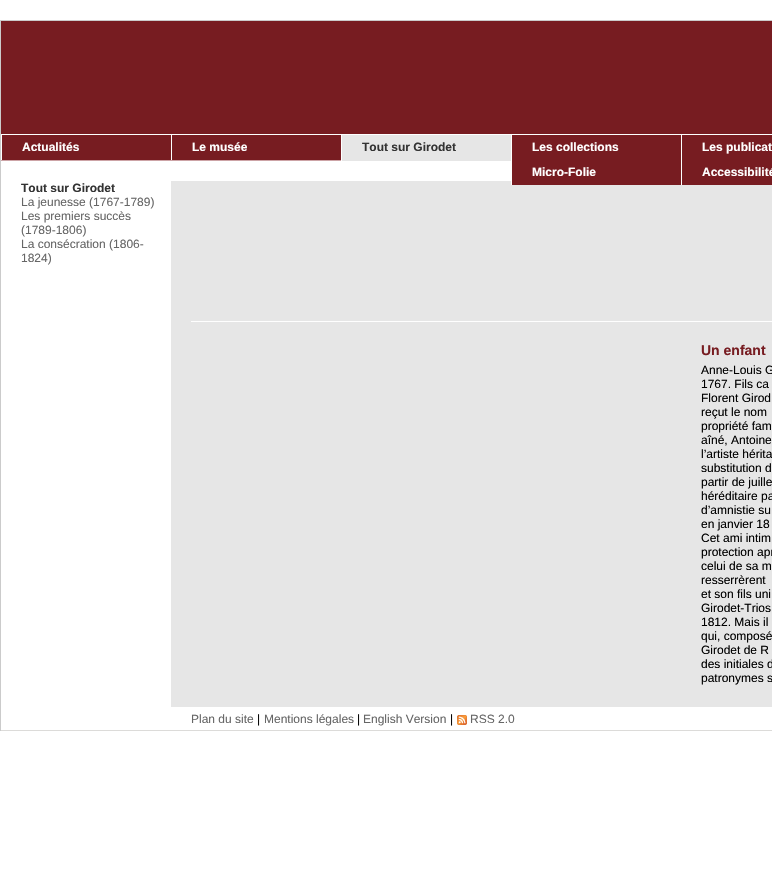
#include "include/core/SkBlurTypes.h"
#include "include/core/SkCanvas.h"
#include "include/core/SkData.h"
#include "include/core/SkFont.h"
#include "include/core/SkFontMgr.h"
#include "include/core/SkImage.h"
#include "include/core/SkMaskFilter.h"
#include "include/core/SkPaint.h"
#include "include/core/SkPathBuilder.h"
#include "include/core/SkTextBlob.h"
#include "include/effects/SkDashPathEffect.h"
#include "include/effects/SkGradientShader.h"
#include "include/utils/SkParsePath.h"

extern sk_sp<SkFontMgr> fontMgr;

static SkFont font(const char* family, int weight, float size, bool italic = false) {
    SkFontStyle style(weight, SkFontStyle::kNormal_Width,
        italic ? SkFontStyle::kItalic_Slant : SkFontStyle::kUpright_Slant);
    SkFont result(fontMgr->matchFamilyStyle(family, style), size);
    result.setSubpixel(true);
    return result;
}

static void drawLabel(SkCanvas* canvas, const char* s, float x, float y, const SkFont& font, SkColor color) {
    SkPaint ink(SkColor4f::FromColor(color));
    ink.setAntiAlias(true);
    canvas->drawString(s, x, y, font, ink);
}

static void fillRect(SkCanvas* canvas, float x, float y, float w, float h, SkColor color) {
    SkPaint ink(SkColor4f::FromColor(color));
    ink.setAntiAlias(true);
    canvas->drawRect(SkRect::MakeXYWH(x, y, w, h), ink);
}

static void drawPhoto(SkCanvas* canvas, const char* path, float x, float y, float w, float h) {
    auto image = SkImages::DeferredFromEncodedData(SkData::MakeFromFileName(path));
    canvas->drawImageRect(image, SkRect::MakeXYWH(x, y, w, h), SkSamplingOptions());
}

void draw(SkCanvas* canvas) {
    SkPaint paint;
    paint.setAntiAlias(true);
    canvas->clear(0xFFFFFFFF);
    fillRect(canvas, 0, 20, 772, 1, 0xFFCBCBCB);
    fillRect(canvas, 0, 730, 772, 1, 0xFFDCDBD9);
    fillRect(canvas, 0, 20, 1, 711, 0xFFCBCBCB);
    fillRect(canvas, 1, 21, 771, 113, 0xFF771C21);
    fillRect(canvas, 1, 160, 340, 1, 0xFFCCA3A6);
    fillRect(canvas, 2, 135, 169, 25, 0xFF771C21);
    SkFont font1 = font("Liberation Sans", 700, 12);
    drawLabel(canvas, "Actualités", 22, 151, font1, 0xFFFFFFFF);
    fillRect(canvas, 172, 135, 169, 25, 0xFF771C21);
    drawLabel(canvas, "Le musée", 192, 151, font1, 0xFFFFFFFF);
    fillRect(canvas, 342, 135, 169, 26, 0xFFE6E6E6);
    drawLabel(canvas, "Tout sur Girodet", 362, 151, font1, 0xFF333333);
    fillRect(canvas, 171, 181, 601, 526, 0xFFE6E6E6);
    fillRect(canvas, 512, 135, 169, 50, 0xFF771C21);
    drawLabel(canvas, "Les collections", 532, 151, font1, 0xFFFFFFFF);
    fillRect(canvas, 682, 135, 90, 50, 0xFF771C21);
    drawLabel(canvas, "Les publicat", 702, 151, font1, 0xFFFFFFFF);
    fillRect(canvas, 511, 181, 1, 4, 0xFFFFFFFF);
    drawLabel(canvas, "Micro-Folie", 532, 176, font1, 0xFFFFFFFF);
    fillRect(canvas, 681, 181, 1, 4, 0xFFFFFFFF);
    drawLabel(canvas, "Accessibilité", 702, 176, font1, 0xFFFFFFFF);
    drawLabel(canvas, "Tout sur Girodet", 21, 192, font1, 0xFF333333);
    SkFont font2 = font("Liberation Sans", 400, 12);
    drawLabel(canvas, "La jeunesse (1767-1789)", 21, 206, font2, 0xFF666666);
    drawLabel(canvas, "Les premiers succès", 21, 220, font2, 0xFF666666);
    drawLabel(canvas, "(1789-1806)", 21, 234, font2, 0xFF666666);
    drawLabel(canvas, "La consécration (1806-", 21, 248, font2, 0xFF666666);
    drawLabel(canvas, "1824)", 21, 262, font2, 0xFF666666);
    fillRect(canvas, 191, 321, 581, 1, 0xFFFEFEFE);
    SkFont font3 = font("Liberation Sans", 700, 14);
    drawLabel(canvas, "Un enfant", 701, 355, font3, 0xFF771C21);
    drawLabel(canvas, "Anne-Louis G", 701, 374, font2, 0xFF000000);
    drawLabel(canvas, "1767. Fils ca", 701, 388, font2, 0xFF000000);
    drawLabel(canvas, "Florent Girod", 701, 402, font2, 0xFF000000);
    drawLabel(canvas, "reçut le nom", 701, 416, font2, 0xFF000000);
    drawLabel(canvas, "propriété fam", 701, 430, font2, 0xFF000000);
    drawLabel(canvas, "aîné, Antoine", 701, 444, font2, 0xFF000000);
    drawLabel(canvas, "l’artiste hérita", 701, 458, font2, 0xFF000000);
    drawLabel(canvas, "substitution d", 701, 472, font2, 0xFF000000);
    drawLabel(canvas, "partir de juille", 701, 486, font2, 0xFF000000);
    drawLabel(canvas, "héréditaire pa", 701, 500, font2, 0xFF000000);
    drawLabel(canvas, "d’amnistie su", 701, 514, font2, 0xFF000000);
    drawLabel(canvas, "en janvier 18", 701, 528, font2, 0xFF000000);
    drawLabel(canvas, "Cet ami intim", 701, 542, font2, 0xFF000000);
    drawLabel(canvas, "protection apr", 701, 556, font2, 0xFF000000);
    drawLabel(canvas, "celui de sa m", 701, 570, font2, 0xFF000000);
    drawLabel(canvas, "resserrèrent", 701, 584, font2, 0xFF000000);
    drawLabel(canvas, "et son fils uni", 701, 598, font2, 0xFF000000);
    drawLabel(canvas, "Girodet-Trios", 701, 612, font2, 0xFF000000);
    drawLabel(canvas, "1812. Mais il", 701, 626, font2, 0xFF000000);
    drawLabel(canvas, "qui, composé", 701, 640, font2, 0xFF000000);
    drawLabel(canvas, "Girodet de R", 701, 654, font2, 0xFF000000);
    drawLabel(canvas, "des initiales d", 701, 668, font2, 0xFF000000);
    drawLabel(canvas, "patronymes s", 701, 682, font2, 0xFF000000);
    drawLabel(canvas, "Plan du site", 191, 723, font2, 0xFF666666);
    drawLabel(canvas, "|", 257, 723, font2, 0xFF000000);
    drawLabel(canvas, "Mentions légales", 264, 723, font2, 0xFF666666);
    drawLabel(canvas, "|", 357, 723, font2, 0xFF000000);
    drawLabel(canvas, "English Version", 363, 723, font2, 0xFF666666);
    drawLabel(canvas, "|", 450, 723, font2, 0xFF000000);
    drawPhoto(canvas, "assets/img1.png", 457, 715, 10, 10);
    drawLabel(canvas, "RSS 2.0", 470, 723, font2, 0xFF666666);
}
